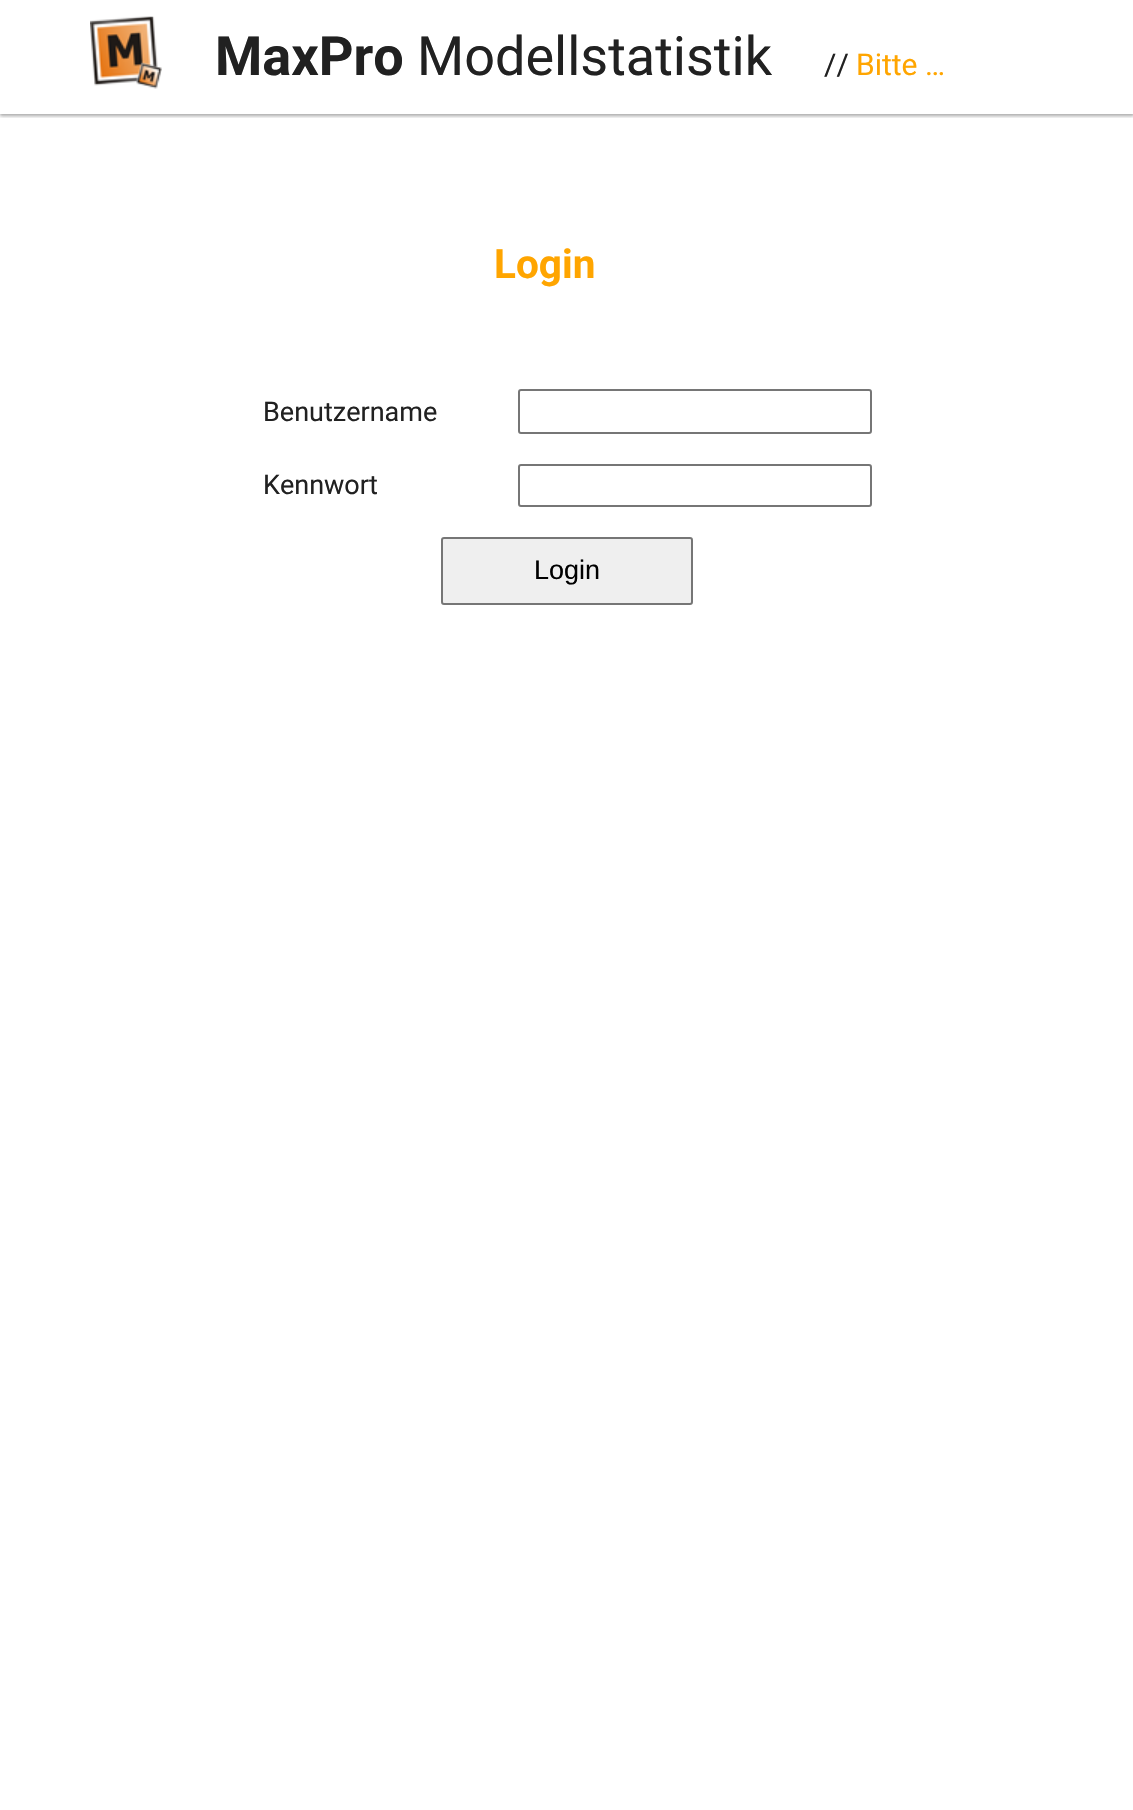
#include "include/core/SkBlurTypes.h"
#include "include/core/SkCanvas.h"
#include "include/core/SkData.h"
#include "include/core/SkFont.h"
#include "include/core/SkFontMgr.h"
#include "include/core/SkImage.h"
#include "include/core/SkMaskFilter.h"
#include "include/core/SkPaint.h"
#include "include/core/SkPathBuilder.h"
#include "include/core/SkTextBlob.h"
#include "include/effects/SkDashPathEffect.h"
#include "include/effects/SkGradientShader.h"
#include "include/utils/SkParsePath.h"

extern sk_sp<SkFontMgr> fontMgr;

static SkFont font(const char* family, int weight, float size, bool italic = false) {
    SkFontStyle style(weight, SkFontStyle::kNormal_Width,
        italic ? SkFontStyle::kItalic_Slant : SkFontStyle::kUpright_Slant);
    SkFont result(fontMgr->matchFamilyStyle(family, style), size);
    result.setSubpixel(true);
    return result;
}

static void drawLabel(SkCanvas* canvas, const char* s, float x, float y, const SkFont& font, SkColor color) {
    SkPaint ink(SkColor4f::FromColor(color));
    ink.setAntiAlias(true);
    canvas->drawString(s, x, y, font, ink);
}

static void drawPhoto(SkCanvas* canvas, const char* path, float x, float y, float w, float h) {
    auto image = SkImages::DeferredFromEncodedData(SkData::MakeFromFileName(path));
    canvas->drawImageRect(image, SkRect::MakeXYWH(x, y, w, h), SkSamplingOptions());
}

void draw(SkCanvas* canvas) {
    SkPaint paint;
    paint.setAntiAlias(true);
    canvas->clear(0xFFFFFFFF);
    canvas->save();
    canvas->clipRect(SkRect::MakeXYWH(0, 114, 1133, 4));
    paint.setColor(0x3D000000);
    paint.setMaskFilter(SkMaskFilter::MakeBlur(kNormal_SkBlurStyle, 1.5f));
    canvas->drawRect(SkRect::MakeXYWH(0, 2, 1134, 114), paint);
    paint.setMaskFilter(nullptr);
    paint.setColor(0x1F000000);
    paint.setMaskFilter(SkMaskFilter::MakeBlur(kNormal_SkBlurStyle, 2));
    canvas->drawRect(SkRect::MakeXYWH(0, 2, 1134, 114), paint);
    paint.setMaskFilter(nullptr);
    canvas->restore();
    drawPhoto(canvas, "assets/img1.png", 90, 16, 72, 73);
    SkFont font1 = font("Roboto", 700, 54);
    drawLabel(canvas, "MaxPro", 215, 75, font1, 0xFF212121);
    SkFont font2 = font("Roboto", 400, 54);
    drawLabel(canvas, "Modellstatistik", 417, 75, font2, 0xFF212121);
    SkFont font3 = font("Roboto", 400, 30);
    drawLabel(canvas, "//", 824, 75, font3, 0xFF212121);
    drawLabel(canvas, "Bitte …", 856, 75, font3, 0xFFFFA500);
    SkFont font4 = font("Roboto", 700, 40.5f);
    drawLabel(canvas, "Login", 494, 278, font4, 0xFFFFA500);
    SkFont font5 = font("Roboto", 400, 27);
    drawLabel(canvas, "Benutzername", 263, 421, font5, 0xFF212121);
    paint.setStroke(true);
    paint.setStrokeWidth(2);
    paint.setColor(0xFF767676);
    canvas->drawRoundRect(SkRect::MakeXYWH(519, 390, 352, 43), 2, 2, paint);
    drawLabel(canvas, "Kennwort", 263, 494, font5, 0xFF212121);
    canvas->drawRoundRect(SkRect::MakeXYWH(519, 465, 352, 41), 2, 2, paint);
    paint.setStroke(false);
    paint.setColor(0xFFEFEFEF);
    canvas->drawRoundRect(SkRect::MakeXYWH(442, 538, 250, 66), 2, 2, paint);
    paint.setStroke(true);
    paint.setColor(0xFF767676);
    canvas->drawRoundRect(SkRect::MakeXYWH(442, 538, 250, 66), 2, 2, paint);
    SkFont font6 = font("Liberation Sans", 400, 27);
    drawLabel(canvas, "Login", 534, 579, font6, 0xFF000000);
}
